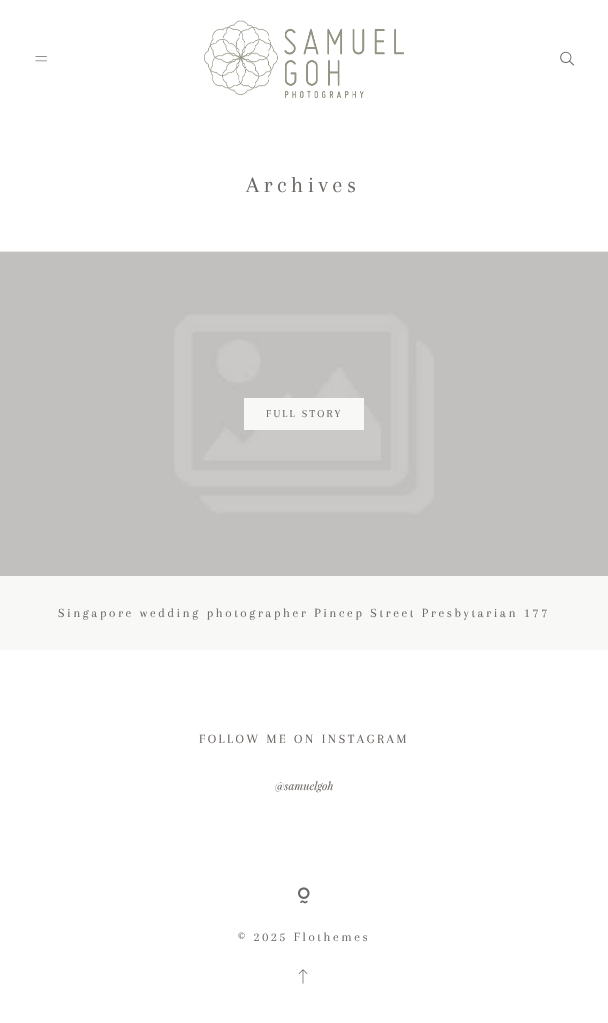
#include "include/core/SkBlurTypes.h"
#include "include/core/SkCanvas.h"
#include "include/core/SkData.h"
#include "include/core/SkFont.h"
#include "include/core/SkFontMgr.h"
#include "include/core/SkImage.h"
#include "include/core/SkMaskFilter.h"
#include "include/core/SkPaint.h"
#include "include/core/SkPathBuilder.h"
#include "include/core/SkTextBlob.h"
#include "include/effects/SkDashPathEffect.h"
#include "include/effects/SkGradientShader.h"
#include "include/utils/SkParsePath.h"

extern sk_sp<SkFontMgr> fontMgr;

static SkFont font(const char* family, int weight, float size, bool italic = false) {
    SkFontStyle style(weight, SkFontStyle::kNormal_Width,
        italic ? SkFontStyle::kItalic_Slant : SkFontStyle::kUpright_Slant);
    SkFont result(fontMgr->matchFamilyStyle(family, style), size);
    result.setSubpixel(true);
    return result;
}

static void drawLabel(SkCanvas* canvas, const char* s, float x, float y, const SkFont& font, SkColor color) {
    SkPaint ink(SkColor4f::FromColor(color));
    ink.setAntiAlias(true);
    canvas->drawString(s, x, y, font, ink);
}

static void drawTracked(SkCanvas* canvas, const char* s, float x, float y, const SkFont& font, const SkPaint& ink, float letter, float word) {
    std::vector<SkGlyphID> glyphs(font.countText(s, strlen(s), SkTextEncoding::kUTF8));
    std::vector<float> xs(glyphs.size());
    font.textToGlyphs(s, strlen(s), SkTextEncoding::kUTF8, glyphs);
    font.getXPos(glyphs, xs, x);
    float extra = 0;
    for (size_t i = 0; i < glyphs.size(); i++) {
        xs[i] += extra;
        extra += letter + word * (glyphs[i] == font.unicharToGlyph(' '));
    }
    canvas->drawTextBlob(SkTextBlob::MakeFromPosHGlyphs(glyphs, xs, y, font), 0, 0, ink);
}

static void fillRect(SkCanvas* canvas, float x, float y, float w, float h, SkColor color) {
    SkPaint ink(SkColor4f::FromColor(color));
    ink.setAntiAlias(true);
    canvas->drawRect(SkRect::MakeXYWH(x, y, w, h), ink);
}

static void drawPhoto(SkCanvas* canvas, const char* path, float x, float y, float w, float h) {
    auto image = SkImages::DeferredFromEncodedData(SkData::MakeFromFileName(path));
    canvas->drawImageRect(image, SkRect::MakeXYWH(x, y, w, h), SkSamplingOptions());
}

void draw(SkCanvas* canvas) {
    SkPaint paint;
    paint.setAntiAlias(true);
    canvas->clear(0xFFFFFFFF);
    drawPhoto(canvas, "assets/img1.png", 35, 56, 12, 6);
    drawPhoto(canvas, "assets/img3.png", 204, 21, 200, 77);
    drawPhoto(canvas, "assets/img2.png", 204, 20, 200, 78);
    drawPhoto(canvas, "assets/img4.png", 560, 51, 15, 15);
    SkFont font1 = font("Arapey", 400, 23);
    paint.setColor(0xFF6B6764);
    drawTracked(canvas, "Archives", 246, 192, font1, paint, 4.5f, 0);
    drawPhoto(canvas, "assets/img5.png", 0, 251, 608, 325);
    fillRect(canvas, 244, 398, 120, 32, 0xFFF8F8F7);
    SkFont font2 = font("Arapey", 400, 11);
    drawTracked(canvas, "FULL STORY", 266, 417, font2, paint, 2.25f, 0);
    fillRect(canvas, 0, 576, 608, 74, 0xFFF8F8F7);
    SkFont font3 = font("Arapey", 400, 13);
    drawTracked(canvas, "Singapore wedding photographer Pincep Street Presbytarian 177", 58, 617, font3, paint, 2.6f, 0);
    drawTracked(canvas, "FOLLOW ME ON INSTAGRAM", 199, 743, font3, paint, 2.6f, 0);
    SkFont font4 = font("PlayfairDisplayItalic", 400, 11, true);
    drawLabel(canvas, "@samuelgoh", 275, 790, font4, 0xFF6B6764);
    drawPhoto(canvas, "assets/img6.png", 298, 887, 12, 17);
    drawTracked(canvas, "© 2025 Flothemes", 238, 941, font3, paint, 2.6f, 0);
    drawPhoto(canvas, "assets/img7.png", 298, 969, 10, 15);
}
